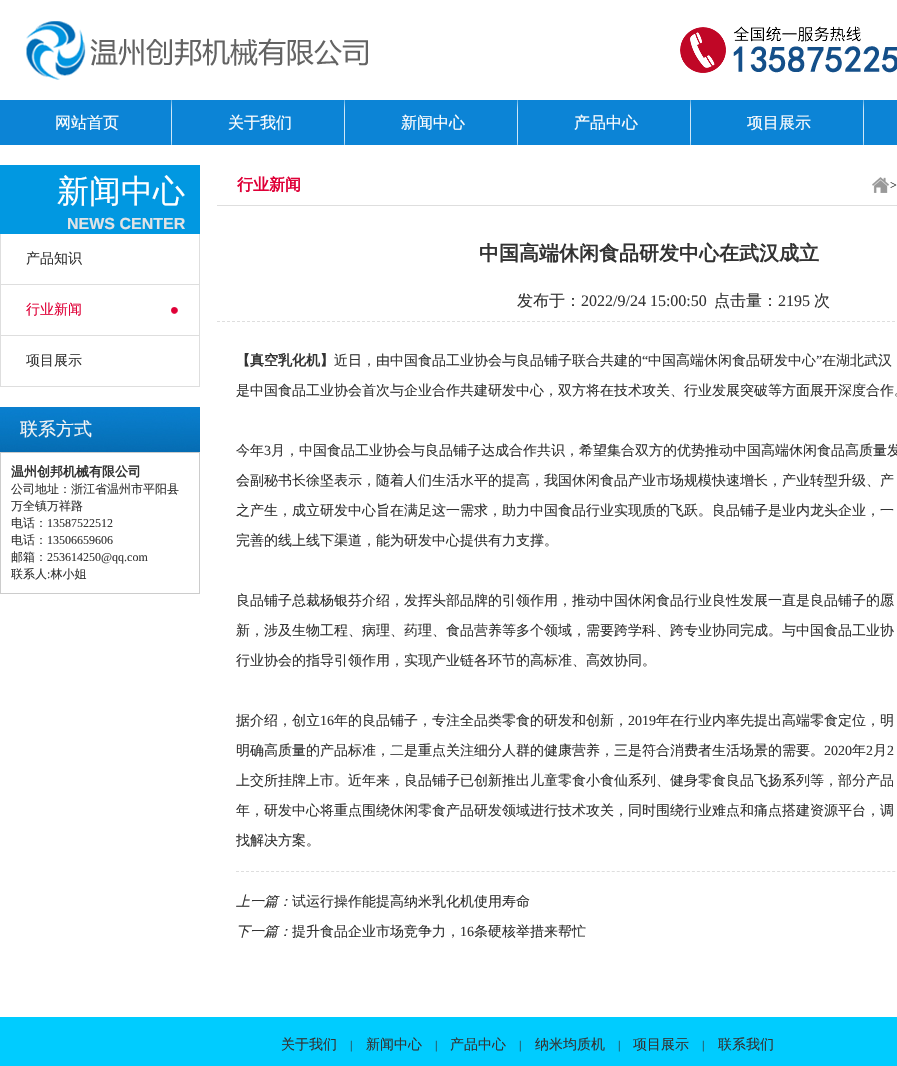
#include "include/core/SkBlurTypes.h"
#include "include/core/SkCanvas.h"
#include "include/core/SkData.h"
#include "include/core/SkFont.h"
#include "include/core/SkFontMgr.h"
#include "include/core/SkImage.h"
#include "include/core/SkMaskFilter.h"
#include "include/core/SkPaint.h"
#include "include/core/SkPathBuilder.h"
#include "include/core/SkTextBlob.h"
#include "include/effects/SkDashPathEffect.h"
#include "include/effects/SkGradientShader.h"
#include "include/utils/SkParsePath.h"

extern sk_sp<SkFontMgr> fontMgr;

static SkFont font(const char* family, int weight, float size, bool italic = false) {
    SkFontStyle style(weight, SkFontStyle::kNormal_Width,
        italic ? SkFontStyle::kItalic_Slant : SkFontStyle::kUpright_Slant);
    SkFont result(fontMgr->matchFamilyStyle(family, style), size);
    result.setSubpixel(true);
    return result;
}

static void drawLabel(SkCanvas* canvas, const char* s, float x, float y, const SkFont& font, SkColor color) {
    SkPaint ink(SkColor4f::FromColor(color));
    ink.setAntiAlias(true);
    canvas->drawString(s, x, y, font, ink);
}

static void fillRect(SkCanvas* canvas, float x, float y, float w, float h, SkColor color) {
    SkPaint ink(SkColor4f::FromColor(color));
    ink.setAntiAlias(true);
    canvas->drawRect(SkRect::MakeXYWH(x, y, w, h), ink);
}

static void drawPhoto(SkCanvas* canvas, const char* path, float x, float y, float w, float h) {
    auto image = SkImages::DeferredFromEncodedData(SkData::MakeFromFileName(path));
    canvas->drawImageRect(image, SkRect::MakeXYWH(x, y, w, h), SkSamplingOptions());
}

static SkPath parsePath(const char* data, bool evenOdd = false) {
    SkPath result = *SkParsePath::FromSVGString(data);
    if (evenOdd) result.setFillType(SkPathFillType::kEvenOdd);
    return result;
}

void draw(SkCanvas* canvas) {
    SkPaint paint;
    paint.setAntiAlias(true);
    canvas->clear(0xFFFFFFFF);
    drawPhoto(canvas, "assets/img1.png", 26, 21, 871, 59);
    fillRect(canvas, 0, 100, 897, 45, 0xFF0C84D6);
    drawPhoto(canvas, "assets/img2.png", 171, 100, 1, 45);
    SkFont font1 = font("WenQuanYi Zen Hei", 500, 16);
    drawLabel(canvas, "网站首页", 55, 128, font1, 0xFFFFFFFF);
    drawPhoto(canvas, "assets/img2.png", 344, 100, 1, 45);
    drawLabel(canvas, "关于我们", 228, 128, font1, 0xFFFFFFFF);
    drawPhoto(canvas, "assets/img2.png", 517, 100, 1, 45);
    drawLabel(canvas, "新闻中心", 401, 128, font1, 0xFFFFFFFF);
    drawPhoto(canvas, "assets/img2.png", 690, 100, 1, 45);
    drawLabel(canvas, "产品中心", 574, 128, font1, 0xFFFFFFFF);
    drawPhoto(canvas, "assets/img2.png", 863, 100, 1, 45);
    drawLabel(canvas, "项目展示", 747, 128, font1, 0xFFFFFFFF);
    fillRect(canvas, 0, 165, 200, 69, 0xFF0198E1);
    SkFont font2 = font("WenQuanYi Zen Hei", 500, 32);
    drawLabel(canvas, "新闻中心", 57, 202, font2, 0xFFFFFFFF);
    SkFont font3 = font("Liberation Sans", 700, 16);
    drawLabel(canvas, "NEWS CENTER", 67, 229, font3, 0xFFE1E3E5);
    fillRect(canvas, 199, 234, 1, 153, 0xFFDEDEDE);
    fillRect(canvas, 0, 234, 1, 153, 0xFFDEDEDE);
    fillRect(canvas, 1, 284, 198, 1, 0xFFDEDEDE);
    SkFont font4 = font("WenQuanYi Zen Hei", 500, 14);
    drawLabel(canvas, "产品知识", 26, 263, font4, 0xFF333333);
    fillRect(canvas, 1, 335, 198, 1, 0xFFDEDEDE);
    drawPhoto(canvas, "assets/img3.png", 171, 307, 7, 7);
    drawLabel(canvas, "行业新闻", 26, 314, font4, 0xFFDF0037);
    fillRect(canvas, 1, 386, 198, 1, 0xFFDEDEDE);
    drawLabel(canvas, "项目展示", 26, 365, font4, 0xFF333333);
    drawPhoto(canvas, "assets/img4.png", 0, 407, 200, 45);
    SkFont font5 = font("WenQuanYi Zen Hei", 500, 18);
    drawLabel(canvas, "联系方式", 20, 435, font5, 0xFFF5F5F5);
    paint.setStroke(true);
    paint.setStrokeWidth(1);
    paint.setColor(0xFFCCCCCC);
    canvas->drawRect(SkRect::MakeXYWH(0.5f, 452.5f, 199, 141), paint);
    SkFont font6 = font("WenQuanYi Zen Hei", 700, 13);
    drawLabel(canvas, "温州创邦机械有限公司", 11, 476, font6, 0xFF333333);
    SkFont font7 = font("WenQuanYi Zen Hei", 500, 12);
    drawLabel(canvas, "公司地址：浙江省温州市平阳县", 11, 493, font7, 0xFF333333);
    drawLabel(canvas, "万全镇万祥路", 11, 510, font7, 0xFF333333);
    drawLabel(canvas, "电话：", 11, 527, font7, 0xFF333333);
    SkFont font8 = font("Liberation Serif", 400, 12);
    drawLabel(canvas, "13587522512", 47, 527, font8, 0xFF333333);
    drawLabel(canvas, "电话：", 11, 544, font7, 0xFF333333);
    drawLabel(canvas, "13506659606", 47, 544, font8, 0xFF333333);
    drawLabel(canvas, "邮箱：", 11, 561, font7, 0xFF333333);
    drawLabel(canvas, "253614250@qq.com", 47, 561, font8, 0xFF333333);
    drawLabel(canvas, "联系人 林小姐", 11, 578, font7, 0xFF333333);
    drawLabel(canvas, ":", 47, 578, font8, 0xFF333333);
    fillRect(canvas, 217, 205, 680, 1, 0xFFDEDEDE);
    SkFont font9 = font("WenQuanYi Zen Hei", 700, 16);
    drawLabel(canvas, "行业新闻", 237, 190, font9, 0xFFDF0037);
    drawPhoto(canvas, "assets/img5.png", 872, 177, 17, 16);
    drawLabel(canvas, ">", 890, 189, font8, 0xFF333333);
    SkFont font10 = font("WenQuanYi Zen Hei", 700, 20);
    drawLabel(canvas, "中国高端休闲食品研发中心在武汉成立", 479, 260, font10, 0xFF333333);
    paint.setColor(0xFFDEDEDE);
    paint.setPathEffect(SkDashPathEffect::Make({{3, 2}}, 0));
    canvas->drawPath(parsePath("M217 321.5H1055"), paint);
    paint.setPathEffect(nullptr);
    drawLabel(canvas, "发布于：", 517, 306, font1, 0xFF333333);
    SkFont font11 = font("Liberation Serif", 400, 16);
    drawLabel(canvas, "2022/9/24 15:00:50", 581, 306, font11, 0xFF333333);
    drawLabel(canvas, "点击量：", 714, 306, font1, 0xFF333333);
    drawLabel(canvas, "2195", 778, 306, font11, 0xFF333333);
    drawLabel(canvas, "次", 814, 306, font1, 0xFF333333);
    SkFont font12 = font("WenQuanYi Zen Hei", 700, 14);
    drawLabel(canvas, "【真空乳化机】", 236, 365, font12, 0xFF333333);
    drawLabel(canvas, "近日，由中国食品工业协会与良品铺子联合共建的", 334, 365, font4, 0xFF333333);
    SkFont font13 = font("Liberation Serif", 400, 14);
    drawLabel(canvas, "“", 642, 365, font13, 0xFF333333);
    drawLabel(canvas, "中国高端休闲食品研发中心", 648, 365, font4, 0xFF333333);
    drawLabel(canvas, "”", 816, 365, font13, 0xFF333333);
    drawLabel(canvas, "在湖北武汉", 822, 365, font4, 0xFF333333);
    drawLabel(canvas, "是中国食品工业协会首次与企业合作共建研发中心，双方将在技术攻关、行业发展突破等方面展开深度合作。", 236, 395, font4, 0xFF333333);
    drawLabel(canvas, "今年", 236, 455, font4, 0xFF333333);
    drawLabel(canvas, "3", 264, 455, font13, 0xFF333333);
    drawLabel(canvas, "月，中国食品工业协会与良品铺子达成合作共识，希望集合双方的优势推动中国高端休闲食品高质量发", 271, 455, font4, 0xFF333333);
    drawLabel(canvas, "会副秘书长徐坚表示，随着人们生活水平的提高，我国休闲食品产业市场规模快速增长，产业转型升级、产", 236, 485, font4, 0xFF333333);
    drawLabel(canvas, "之产生，成立研发中心旨在满足这一需求，助力中国食品行业实现质的飞跃。良品铺子是业内龙头企业，一", 236, 515, font4, 0xFF333333);
    drawLabel(canvas, "完善的线上线下渠道，能为研发中心提供有力支撑。", 236, 545, font4, 0xFF333333);
    drawLabel(canvas, "良品铺子总裁杨银芬介绍，发挥头部品牌的引领作用，推动中国休闲食品行业良性发展一直是良品铺子的愿", 236, 605, font4, 0xFF333333);
    drawLabel(canvas, "新，涉及生物工程、病理、药理、食品营养等多个领域，需要跨学科、跨专业协同完成。与中国食品工业协", 236, 635, font4, 0xFF333333);
    drawLabel(canvas, "行业协会的指导引领作用，实现产业链各环节的高标准、高效协同。", 236, 665, font4, 0xFF333333);
    drawLabel(canvas, "据介绍，创立", 236, 725, font4, 0xFF333333);
    drawLabel(canvas, "16", 320, 725, font13, 0xFF333333);
    drawLabel(canvas, "年的良品铺子，专注全品类零食的研发和创新，", 334, 725, font4, 0xFF333333);
    drawLabel(canvas, "2019", 628, 725, font13, 0xFF333333);
    drawLabel(canvas, "年在行业内率先提出高端零食定位，明", 656, 725, font4, 0xFF333333);
    drawLabel(canvas, "明确高质量的产品标准，二是重点关注细分人群的健康营养，三是符合消费者生活场景的需要。", 236, 755, font4, 0xFF333333);
    drawLabel(canvas, "2020", 824, 755, font13, 0xFF333333);
    drawLabel(canvas, "年", 852, 755, font4, 0xFF333333);
    drawLabel(canvas, "2", 866, 755, font13, 0xFF333333);
    drawLabel(canvas, "月", 873, 755, font4, 0xFF333333);
    drawLabel(canvas, "2", 887, 755, font13, 0xFF333333);
    drawLabel(canvas, "上交所挂牌上市。近年来，良品铺子已创新推出儿童零食小食仙系列、健身零食良品飞扬系列等，部分产品", 236, 785, font4, 0xFF333333);
    drawLabel(canvas, "年，研发中心将重点围绕休闲零食产品研发领域进行技术攻关，同时围绕行业难点和痛点搭建资源平台，调", 236, 815, font4, 0xFF333333);
    drawLabel(canvas, "找解决方案。", 236, 845, font4, 0xFF333333);
    paint.setPathEffect(SkDashPathEffect::Make({{3, 2.01f}}, 0));
    canvas->drawPath(parsePath("M236 871.5H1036"), paint);
    paint.setPathEffect(nullptr);
    SkFont font14 = font("WenQuanYi Zen Hei", 500, 14, true);
    drawLabel(canvas, "上一篇：", 236, 906, font14, 0xFF333333);
    drawLabel(canvas, "试运行操作能提高纳米乳化机使用寿命", 292, 906, font4, 0xFF333333);
    drawLabel(canvas, "下一篇：", 236, 936, font14, 0xFF333333);
    drawLabel(canvas, "提升食品企业市场竞争力，", 292, 936, font4, 0xFF333333);
    drawLabel(canvas, "16", 460, 936, font13, 0xFF333333);
    drawLabel(canvas, "条硬核举措来帮忙", 474, 936, font4, 0xFF333333);
    fillRect(canvas, 0, 1017, 897, 49, 0xFF00CCFF);
    drawLabel(canvas, "关于我们", 281, 1049, font4, 0xFF333333);
    drawLabel(canvas, "|", 350, 1049, font8, 0xFF333333);
    drawLabel(canvas, "新闻中心", 366, 1049, font4, 0xFF333333);
    drawLabel(canvas, "|", 435, 1049, font8, 0xFF333333);
    drawLabel(canvas, "产品中心", 450, 1049, font4, 0xFF333333);
    drawLabel(canvas, "|", 519, 1049, font8, 0xFF333333);
    drawLabel(canvas, "纳米均质机", 535, 1049, font4, 0xFF333333);
    drawLabel(canvas, "|", 618, 1049, font8, 0xFF333333);
    drawLabel(canvas, "项目展示", 633, 1049, font4, 0xFF333333);
    drawLabel(canvas, "|", 702, 1049, font8, 0xFF333333);
    drawLabel(canvas, "联系我们", 718, 1049, font4, 0xFF333333);
}
